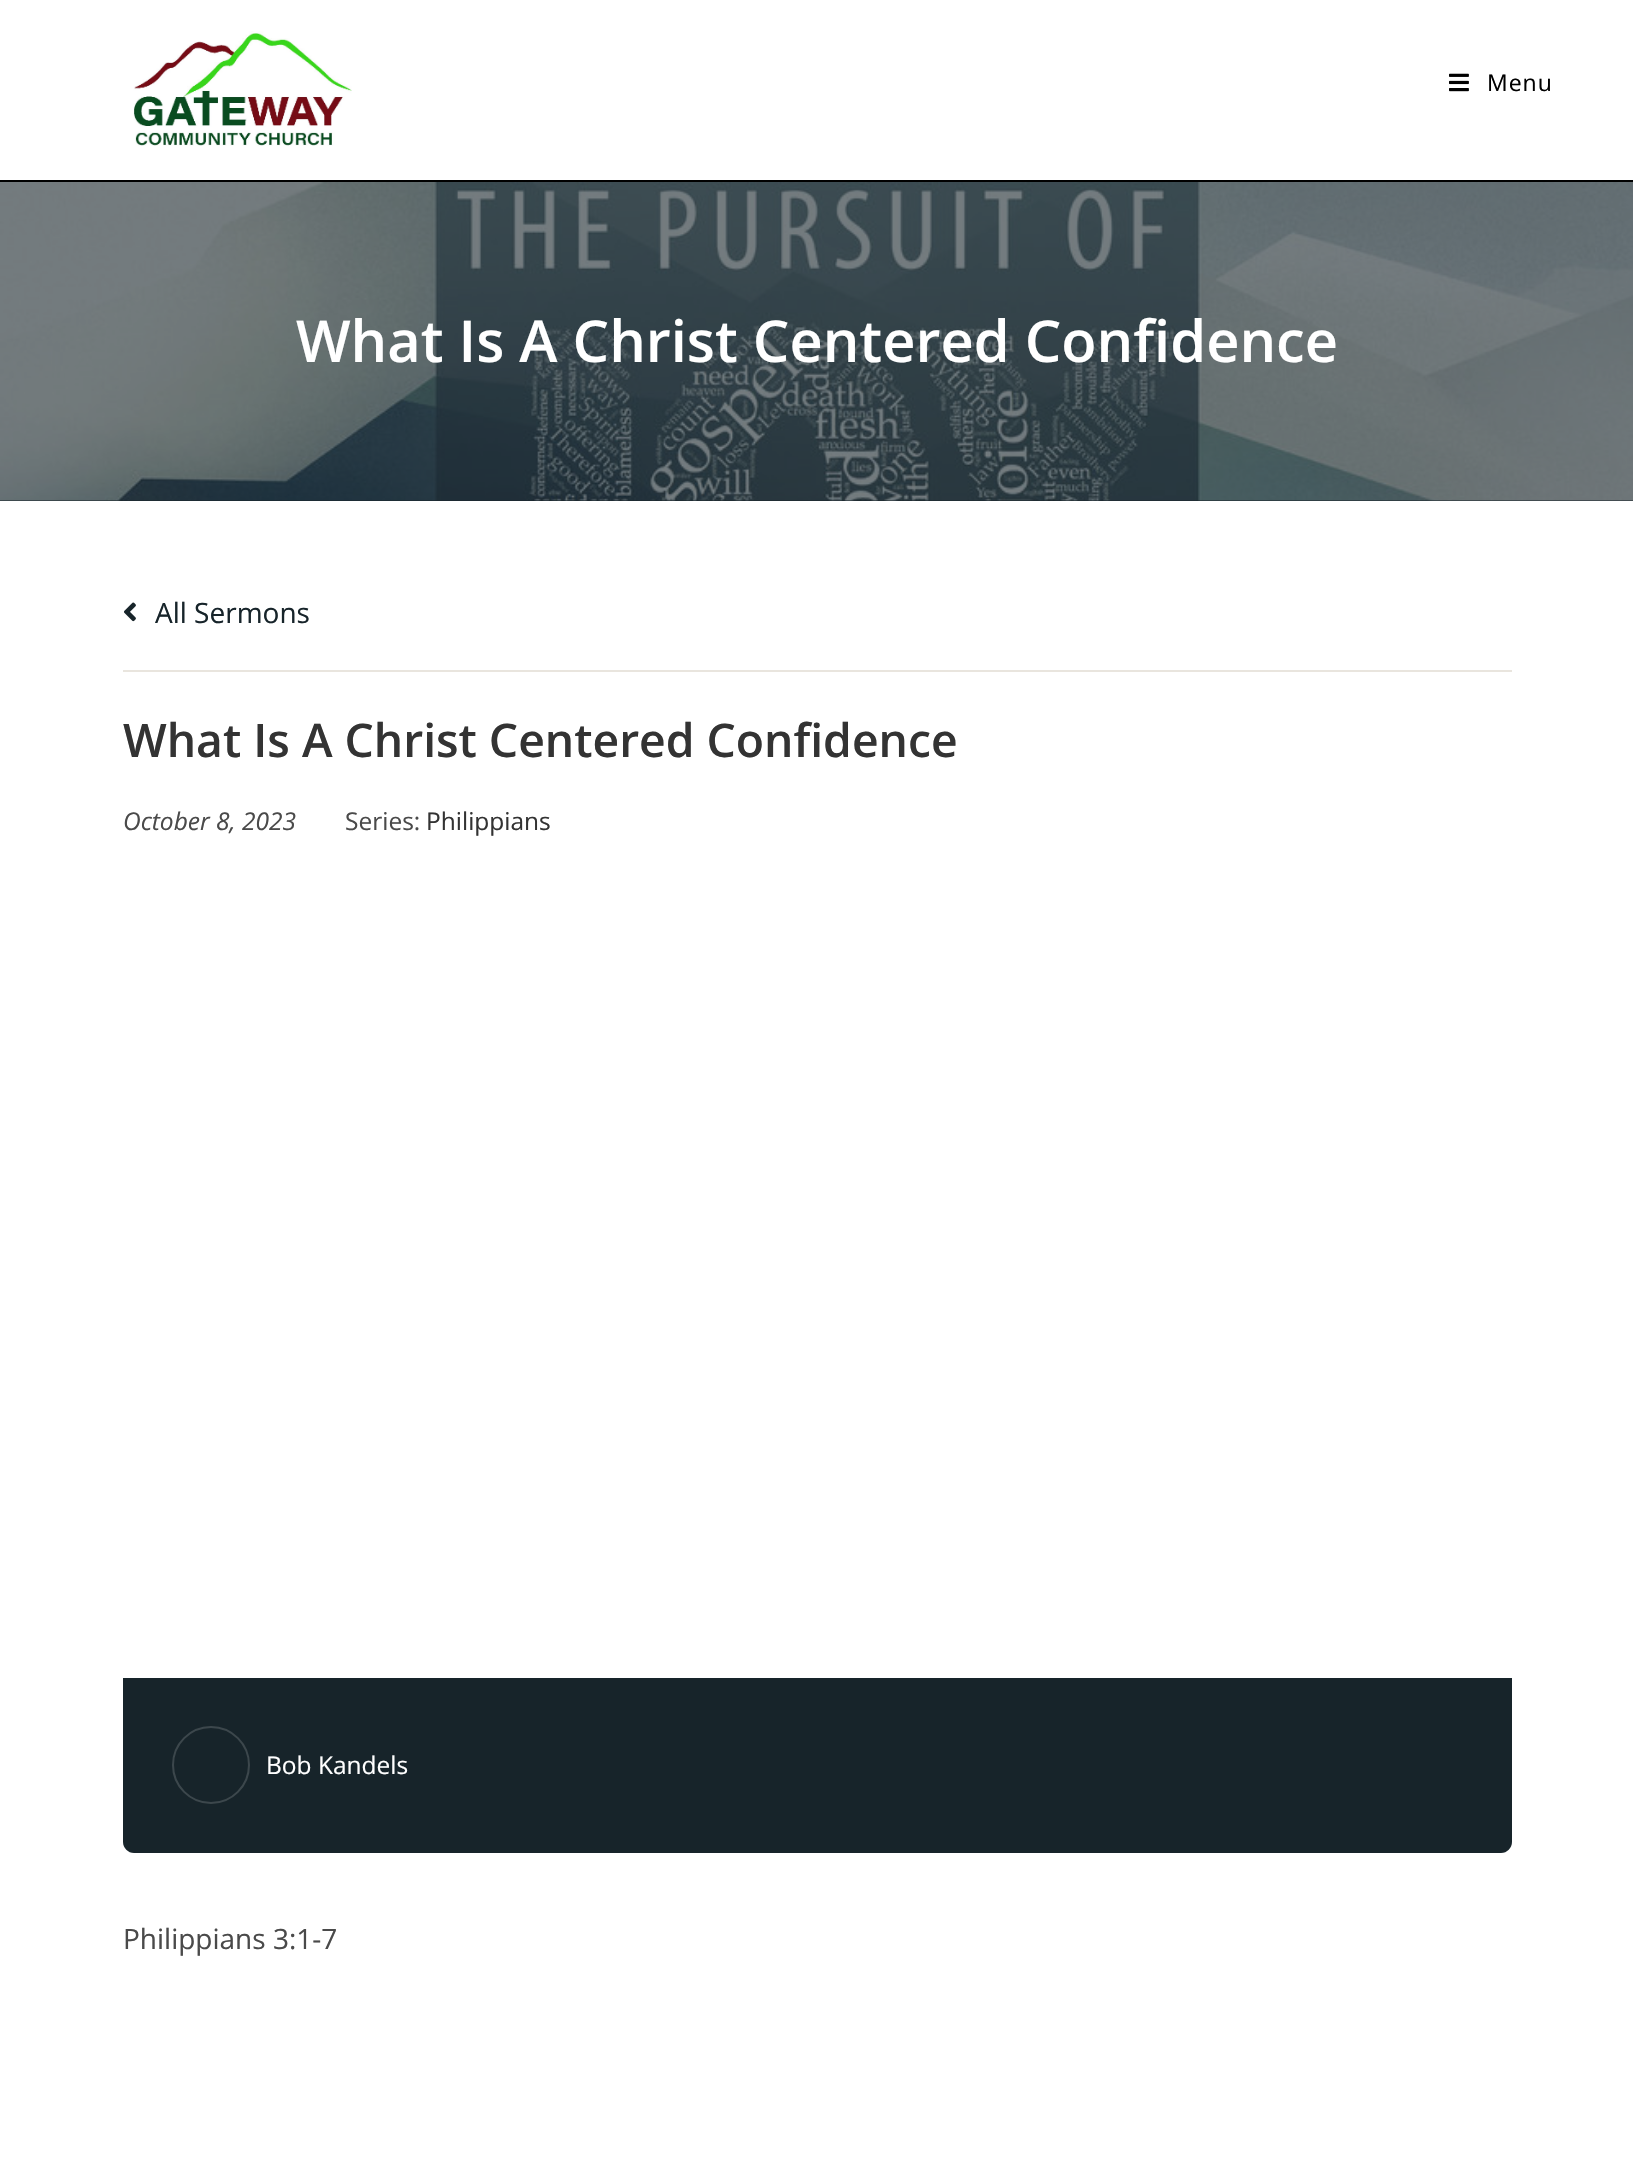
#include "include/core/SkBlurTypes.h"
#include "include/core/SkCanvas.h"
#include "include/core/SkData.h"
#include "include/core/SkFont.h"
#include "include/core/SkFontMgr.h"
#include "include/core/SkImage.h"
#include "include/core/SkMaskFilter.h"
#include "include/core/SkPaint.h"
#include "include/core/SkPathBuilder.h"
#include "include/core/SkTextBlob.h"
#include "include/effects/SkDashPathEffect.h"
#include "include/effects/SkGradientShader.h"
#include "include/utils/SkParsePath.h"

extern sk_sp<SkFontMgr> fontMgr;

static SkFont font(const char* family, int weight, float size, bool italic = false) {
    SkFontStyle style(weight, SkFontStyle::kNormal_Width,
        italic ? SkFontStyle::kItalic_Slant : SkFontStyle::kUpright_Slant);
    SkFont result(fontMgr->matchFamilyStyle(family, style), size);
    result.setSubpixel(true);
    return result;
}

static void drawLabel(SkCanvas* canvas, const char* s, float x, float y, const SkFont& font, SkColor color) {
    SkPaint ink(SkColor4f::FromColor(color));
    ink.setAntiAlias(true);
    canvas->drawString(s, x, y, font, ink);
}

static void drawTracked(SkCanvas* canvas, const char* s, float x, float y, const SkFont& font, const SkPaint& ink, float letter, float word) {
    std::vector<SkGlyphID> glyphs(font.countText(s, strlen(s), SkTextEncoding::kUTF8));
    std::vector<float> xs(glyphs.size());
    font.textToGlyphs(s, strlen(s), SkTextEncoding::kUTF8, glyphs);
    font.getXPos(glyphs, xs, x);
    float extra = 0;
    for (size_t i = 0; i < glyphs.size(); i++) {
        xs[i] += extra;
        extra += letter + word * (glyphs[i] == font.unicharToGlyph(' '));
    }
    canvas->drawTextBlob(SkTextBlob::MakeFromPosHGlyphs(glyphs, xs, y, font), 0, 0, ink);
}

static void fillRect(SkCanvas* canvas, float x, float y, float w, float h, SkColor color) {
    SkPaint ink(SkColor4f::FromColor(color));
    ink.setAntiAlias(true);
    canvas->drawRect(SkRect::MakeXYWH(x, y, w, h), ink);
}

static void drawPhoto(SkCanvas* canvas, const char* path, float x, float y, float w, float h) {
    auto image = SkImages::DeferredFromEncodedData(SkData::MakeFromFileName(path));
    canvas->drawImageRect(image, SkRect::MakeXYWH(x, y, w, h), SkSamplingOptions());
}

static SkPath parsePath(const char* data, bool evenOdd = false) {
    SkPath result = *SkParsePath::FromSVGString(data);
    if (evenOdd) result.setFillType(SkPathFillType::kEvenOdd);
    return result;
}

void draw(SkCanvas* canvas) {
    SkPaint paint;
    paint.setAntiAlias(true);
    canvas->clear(0xFFFFFFFF);
    fillRect(canvas, 0, 180, 1633, 2, 0xFF000000);
    drawPhoto(canvas, "assets/img1.png", 133, 31, 219, 115);
    drawPhoto(canvas, "assets/img2.png", 1449, 73, 20, 19);
    SkFont font1 = font("Open Sans", 400, 23);
    paint.setColor(0xFF000000);
    drawTracked(canvas, "Menu", 1487, 91, font1, paint, 1, 0);
    fillRect(canvas, 0, 500, 1633, 1, 0xFF17242A);
    drawPhoto(canvas, "assets/img3.png", 0, 182, 1633, 319);
    SkFont font2 = font("Open Sans", 600, 57.75f);
    drawLabel(canvas, "What Is A Christ Centered Confidence", 296, 362, font2, 0xFFFFFFFF);
    fillRect(canvas, 123, 670, 1389, 2, 0xFFE9E5DE);
    drawPhoto(canvas, "assets/img4.png", 124, 602, 12, 20);
    SkFont font3 = font("Open Sans", 400, 28);
    drawLabel(canvas, "All Sermons", 155, 623, font3, 0xFF17242A);
    SkFont font4 = font("Open Sans", 600, 46.25f);
    drawLabel(canvas, "What Is A Christ Centered Confidence", 123, 757, font4, 0xFF333333);
    SkFont font5 = font("Open Sans", 400, 24.5f, true);
    drawLabel(canvas, "October 8, 2023", 123, 830, font5, 0xFF4A4A4A);
    SkFont font6 = font("Open Sans", 400, 24.5f);
    drawLabel(canvas, "Series:", 345, 830, font6, 0xFF4A4A4A);
    drawLabel(canvas, "Philippians", 426, 830, font6, 0xFF333333);
    paint.setColor(0xFF17242A);
    canvas->drawPath(parsePath("M123 1678H1512V1842C1512 1848 1507 1853 1501 1853H134C128 1853 123 1848 123 1842Z"), paint);
    paint.setStroke(true);
    paint.setStrokeWidth(2);
    paint.setColor(0xFF3C474C);
    canvas->drawCircle(211, 1765, 38, paint);
    drawLabel(canvas, "Bob Kandels", 266, 1774, font6, 0xFFFFFFFF);
    drawLabel(canvas, "Philippians 3:1-7", 123, 1949, font3, 0xFF4A4A4A);
}
